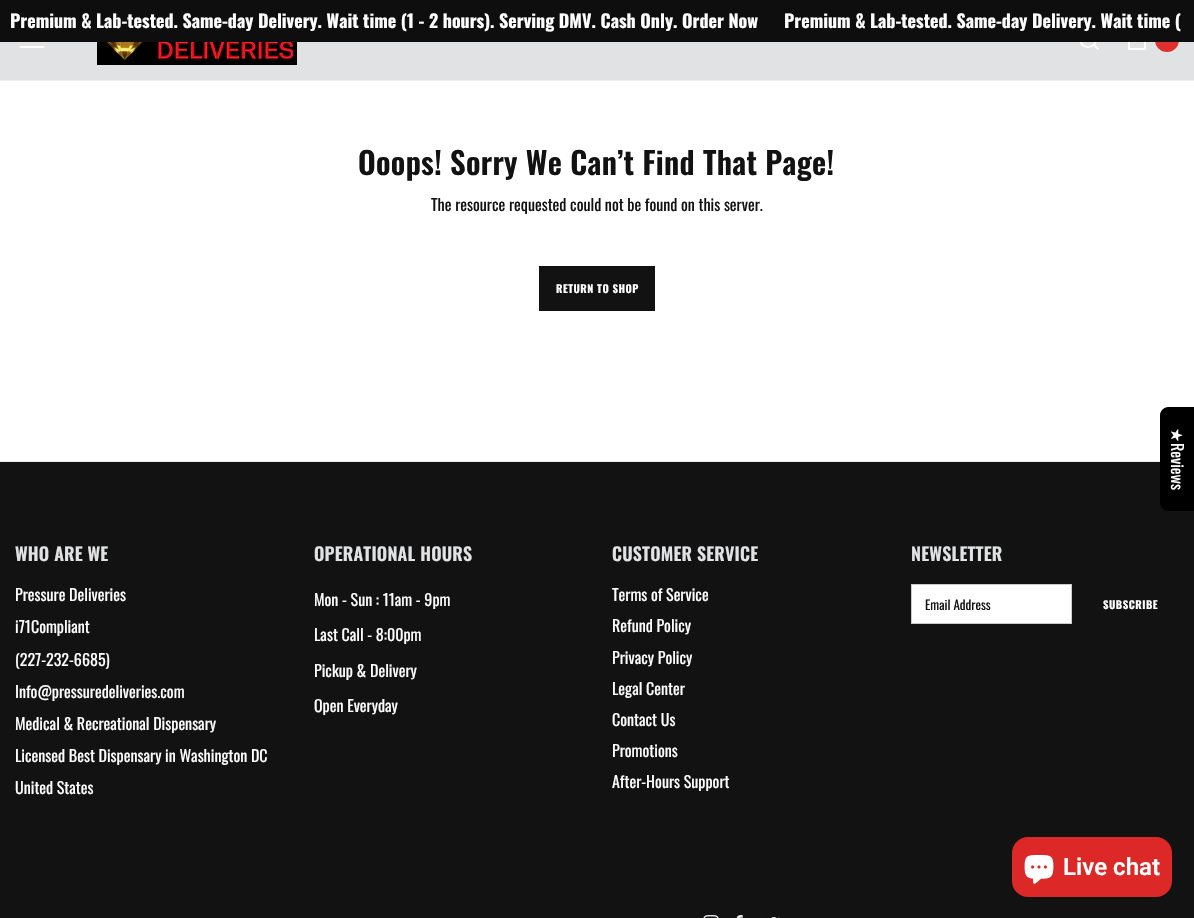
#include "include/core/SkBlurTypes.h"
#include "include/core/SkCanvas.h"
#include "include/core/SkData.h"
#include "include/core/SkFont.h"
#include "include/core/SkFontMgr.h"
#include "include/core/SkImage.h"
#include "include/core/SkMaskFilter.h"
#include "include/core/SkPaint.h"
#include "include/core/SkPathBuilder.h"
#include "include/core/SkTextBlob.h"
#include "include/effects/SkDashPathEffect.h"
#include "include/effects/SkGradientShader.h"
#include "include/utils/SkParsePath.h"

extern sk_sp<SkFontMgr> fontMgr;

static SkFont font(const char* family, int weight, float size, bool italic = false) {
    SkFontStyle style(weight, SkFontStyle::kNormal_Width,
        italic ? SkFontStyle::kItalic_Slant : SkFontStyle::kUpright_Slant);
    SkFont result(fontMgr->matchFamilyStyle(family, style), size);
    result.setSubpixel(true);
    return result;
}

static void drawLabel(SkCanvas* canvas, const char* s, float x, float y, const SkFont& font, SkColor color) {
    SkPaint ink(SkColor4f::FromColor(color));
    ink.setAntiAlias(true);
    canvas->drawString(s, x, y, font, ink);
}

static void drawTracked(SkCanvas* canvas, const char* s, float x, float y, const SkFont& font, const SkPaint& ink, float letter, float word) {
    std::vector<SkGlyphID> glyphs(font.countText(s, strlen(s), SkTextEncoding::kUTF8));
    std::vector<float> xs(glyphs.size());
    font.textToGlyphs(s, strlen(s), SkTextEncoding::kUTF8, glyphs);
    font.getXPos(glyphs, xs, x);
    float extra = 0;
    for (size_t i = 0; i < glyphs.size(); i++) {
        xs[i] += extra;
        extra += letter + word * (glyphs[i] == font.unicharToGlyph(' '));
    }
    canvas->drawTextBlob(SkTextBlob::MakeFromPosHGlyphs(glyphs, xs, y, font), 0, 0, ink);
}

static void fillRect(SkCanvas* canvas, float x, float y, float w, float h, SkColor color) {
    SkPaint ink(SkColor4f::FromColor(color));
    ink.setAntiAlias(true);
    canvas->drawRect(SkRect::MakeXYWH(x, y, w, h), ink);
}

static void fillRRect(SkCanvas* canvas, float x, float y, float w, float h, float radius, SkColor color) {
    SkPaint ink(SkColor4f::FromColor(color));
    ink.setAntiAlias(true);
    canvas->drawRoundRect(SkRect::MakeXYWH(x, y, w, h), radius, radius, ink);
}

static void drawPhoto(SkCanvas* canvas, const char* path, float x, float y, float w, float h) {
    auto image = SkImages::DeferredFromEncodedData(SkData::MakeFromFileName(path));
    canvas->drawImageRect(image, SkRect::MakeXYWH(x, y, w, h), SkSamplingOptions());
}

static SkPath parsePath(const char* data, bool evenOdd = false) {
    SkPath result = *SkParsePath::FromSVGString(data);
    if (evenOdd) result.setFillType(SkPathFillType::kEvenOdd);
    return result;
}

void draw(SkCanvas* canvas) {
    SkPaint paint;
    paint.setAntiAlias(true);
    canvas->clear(0xFFFFFFFF);
    fillRect(canvas, 0, 42, 1194, 38, 0xFFE1E2E4);
    paint.setColor(0xFFDF302D);
    canvas->drawCircle(1167, 40, 12, paint);
    fillRect(canvas, 0, 0, 1194, 42, 0xFF0E0E0E);
    SkFont font1 = font("Oswald", 700, 18);
    drawLabel(canvas, "Premium & Lab-tested. Same-day Delivery. Wait time (1 - 2 hours). Serving DMV. Cash Only. Order Now", 10, 28, font1, 0xFFFFFFFF);
    drawLabel(canvas, "Premium & Lab-tested. Same-day Delivery. Wait time (", 784, 28, font1, 0xFFFFFFFF);
    fillRect(canvas, 0, 80, 1194, 1, 0xFFECF0ED);
    drawPhoto(canvas, "assets/img1.png", 19, 46, 26, 2);
    drawPhoto(canvas, "assets/img2.png", 97, 42, 200, 23);
    drawPhoto(canvas, "assets/img3.png", 1079, 42, 20, 8);
    drawPhoto(canvas, "assets/img4.png", 1128, 42, 18, 8);
    SkFont font2 = font("Oswald", 600, 30.8f);
    paint.setColor(0xFF121212);
    drawTracked(canvas, "Ooops! Sorry We Can’t Find That Page!", 358, 175, font2, paint, 0.3f, 0);
    SkFont font3 = font("Oswald", 400, 16);
    drawLabel(canvas, "The resource requested could not be found on this server.", 431, 211, font3, 0xFF121212);
    fillRect(canvas, 539, 266, 116, 45, 0xFF121212);
    SkFont font4 = font("Oswald", 700, 10.75f);
    paint.setColor(0xFFFFFFFF);
    drawTracked(canvas, "RETURN TO SHOP", 556, 293, font4, paint, 0.5f, 0);
    fillRect(canvas, 0, 462, 1194, 456, 0xFF121212);
    paint.setColor(0xFF000000);
    canvas->drawPath(parsePath("M1194 407V511H1168C1164 511 1160 507 1160 503V415C1160 411 1164 407 1168 407Z"), paint);
    SkFont font5 = font("DejaVu Sans", 400, 16);
    canvas->save();
    canvas->rotate(90, 1171, 428);
    drawLabel(canvas, "★", 1171, 428, font5, 0xFFFFFFFF);
    canvas->restore();
    canvas->save();
    canvas->rotate(90, 1171, 443);
    drawLabel(canvas, "Reviews", 1171, 443, font3, 0xFFFFFFFF);
    canvas->restore();
    fillRect(canvas, 0, 461, 1160, 1, 0xFFECF0ED);
    SkFont font6 = font("Oswald", 600, 18);
    paint.setColor(0xFFE1E2E4);
    drawTracked(canvas, "WHO ARE WE", 15, 561, font6, paint, 0.2f, 0);
    drawLabel(canvas, "Pressure Deliveries", 15, 601, font3, 0xFFFFFFFF);
    drawLabel(canvas, "i71Compliant", 15, 633, font3, 0xFFFFFFFF);
    drawLabel(canvas, "(227-232-6685)", 15, 666, font3, 0xFFFFFFFF);
    drawLabel(canvas, "Info@pressuredeliveries.com", 15, 698, font3, 0xFFFFFFFF);
    drawLabel(canvas, "Medical & Recreational Dispensary", 15, 730, font3, 0xFFFFFFFF);
    drawLabel(canvas, "Licensed Best Dispensary in Washington DC", 15, 762, font3, 0xFFFFFFFF);
    drawLabel(canvas, "United States", 15, 794, font3, 0xFFFFFFFF);
    drawTracked(canvas, "OPERATIONAL HOURS", 314, 561, font6, paint, 0.2f, 0);
    drawLabel(canvas, "Mon - Sun : 11am - 9pm", 314, 606, font3, 0xFFFFFFFF);
    drawLabel(canvas, "Last Call - 8:00pm", 314, 641, font3, 0xFFFFFFFF);
    drawLabel(canvas, "Pickup & Delivery", 314, 677, font3, 0xFFFFFFFF);
    drawLabel(canvas, "Open Everyday", 314, 712, font3, 0xFFFFFFFF);
    drawTracked(canvas, "CUSTOMER SERVICE", 612, 561, font6, paint, 0.2f, 0);
    drawLabel(canvas, "Terms of Service", 612, 601, font3, 0xFFFFFFFF);
    drawLabel(canvas, "Refund Policy", 612, 632, font3, 0xFFFFFFFF);
    drawLabel(canvas, "Privacy Policy", 612, 664, font3, 0xFFFFFFFF);
    drawLabel(canvas, "Legal Center", 612, 695, font3, 0xFFFFFFFF);
    drawLabel(canvas, "Contact Us", 612, 726, font3, 0xFFFFFFFF);
    drawLabel(canvas, "Promotions", 612, 757, font3, 0xFFFFFFFF);
    drawLabel(canvas, "After-Hours Support", 612, 788, font3, 0xFFFFFFFF);
    drawTracked(canvas, "NEWSLETTER", 911, 561, font6, paint, 0.2f, 0);
    paint.setColor(0xFFFFFFFF);
    canvas->drawRect(SkRect::MakeXYWH(911.5f, 584.5f, 160, 39), paint);
    paint.setStroke(true);
    paint.setStrokeWidth(1);
    paint.setColor(0xFFCCCCCC);
    canvas->drawRect(SkRect::MakeXYWH(911.5f, 584.5f, 160, 39), paint);
    SkFont font7 = font("Oswald", 400, 13);
    drawLabel(canvas, "Email Address", 925, 610, font7, 0xFF121212);
    paint.setStroke(false);
    paint.setColor(0xFFFFFFFF);
    drawTracked(canvas, "SUBSCRIBE", 1103, 609, font4, paint, 0.5f, 0);
    drawPhoto(canvas, "assets/img5.png", 703, 915, 16, 3);
    drawPhoto(canvas, "assets/img6.png", 736, 915, 7, 3);
    drawPhoto(canvas, "assets/img7.png", 761, 917, 19, 1);
    fillRRect(canvas, 1012, 837, 160, 60, 16, 0xFFDC2827);
    drawPhoto(canvas, "assets/img8.png", 1024, 855, 30, 29);
    SkFont font8 = font("Roboto", 600, 24);
    drawLabel(canvas, "Live chat", 1063, 875, font8, 0xFFFFFFFF);
}
